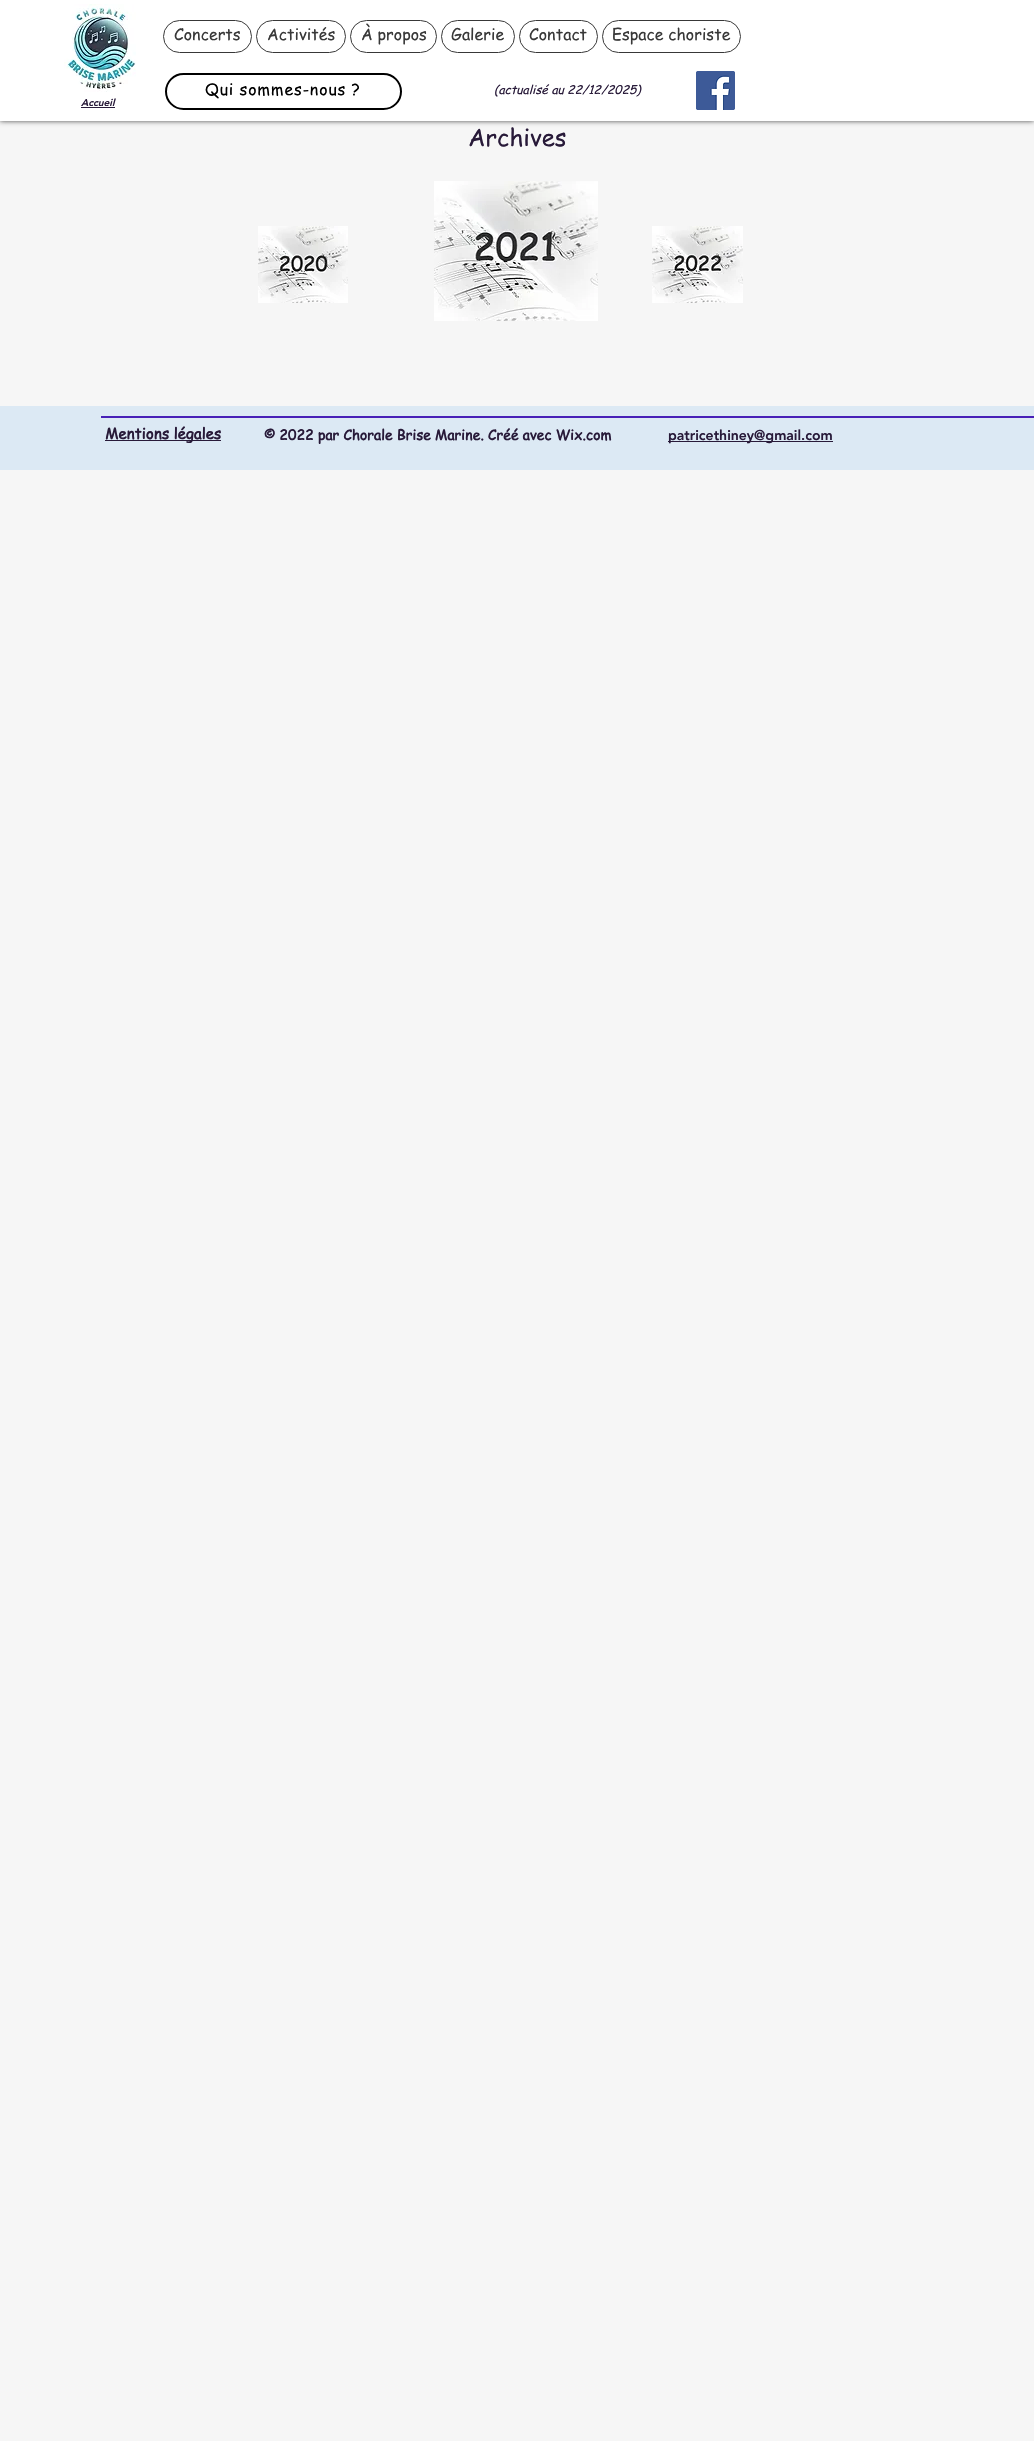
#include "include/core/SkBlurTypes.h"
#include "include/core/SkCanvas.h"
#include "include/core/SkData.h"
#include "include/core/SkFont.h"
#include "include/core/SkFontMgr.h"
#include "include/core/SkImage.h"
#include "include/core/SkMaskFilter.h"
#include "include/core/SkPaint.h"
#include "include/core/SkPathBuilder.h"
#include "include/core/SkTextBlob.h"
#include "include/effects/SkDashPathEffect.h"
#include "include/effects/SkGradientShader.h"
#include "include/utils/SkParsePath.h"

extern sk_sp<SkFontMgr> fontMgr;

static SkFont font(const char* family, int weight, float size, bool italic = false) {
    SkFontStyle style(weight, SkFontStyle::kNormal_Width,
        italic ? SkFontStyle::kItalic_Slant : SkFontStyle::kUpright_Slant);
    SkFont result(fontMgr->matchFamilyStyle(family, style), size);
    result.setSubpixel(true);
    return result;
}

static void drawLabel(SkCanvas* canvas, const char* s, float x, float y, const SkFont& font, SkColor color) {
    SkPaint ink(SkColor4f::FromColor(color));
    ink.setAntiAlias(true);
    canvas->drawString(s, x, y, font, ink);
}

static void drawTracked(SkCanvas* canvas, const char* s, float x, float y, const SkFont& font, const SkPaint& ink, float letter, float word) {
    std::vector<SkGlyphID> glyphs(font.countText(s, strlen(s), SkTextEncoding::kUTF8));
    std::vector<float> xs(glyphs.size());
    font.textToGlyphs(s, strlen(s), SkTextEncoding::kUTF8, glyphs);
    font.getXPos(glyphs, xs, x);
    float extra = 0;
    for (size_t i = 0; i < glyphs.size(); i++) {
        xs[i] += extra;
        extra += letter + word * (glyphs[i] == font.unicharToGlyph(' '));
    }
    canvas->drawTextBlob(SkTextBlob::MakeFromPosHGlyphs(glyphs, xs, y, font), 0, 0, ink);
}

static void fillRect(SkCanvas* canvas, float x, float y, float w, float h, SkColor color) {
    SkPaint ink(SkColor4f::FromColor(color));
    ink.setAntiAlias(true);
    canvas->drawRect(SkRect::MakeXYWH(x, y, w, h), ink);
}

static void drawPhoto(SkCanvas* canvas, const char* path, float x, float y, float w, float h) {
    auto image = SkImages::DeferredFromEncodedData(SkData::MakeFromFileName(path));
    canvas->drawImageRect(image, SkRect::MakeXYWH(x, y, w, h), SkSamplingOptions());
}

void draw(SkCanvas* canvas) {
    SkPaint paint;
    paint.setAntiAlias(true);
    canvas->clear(0xFFF6F6F6);
    paint.setColor(0xB3000000);
    paint.setMaskFilter(SkMaskFilter::MakeBlur(kNormal_SkBlurStyle, 2.5f));
    canvas->drawRect(SkRect::MakeXYWH(0, 0, 1034, 121), paint);
    paint.setMaskFilter(nullptr);
    fillRect(canvas, 0, 0, 1034, 121, 0xFFFFFFFF);
    paint.setStroke(true);
    paint.setStrokeWidth(1);
    paint.setColor(0xFF383838);
    canvas->drawRoundRect(SkRect::MakeXYWH(163.5f, 20.5f, 88, 32), 16, 16, paint);
    SkFont font1 = font("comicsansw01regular", 400, 16);
    drawLabel(canvas, "Concerts", 174, 40, font1, 0xFF383838);
    canvas->drawRoundRect(SkRect::MakeXYWH(256.5f, 20.5f, 89, 32), 16, 16, paint);
    drawLabel(canvas, "Activités", 267, 40, font1, 0xFF383838);
    canvas->drawRoundRect(SkRect::MakeXYWH(350.5f, 20.5f, 86, 32), 16, 16, paint);
    drawLabel(canvas, "À propos", 361, 40, font1, 0xFF383838);
    canvas->drawRoundRect(SkRect::MakeXYWH(441.5f, 20.5f, 73, 32), 16, 16, paint);
    drawLabel(canvas, "Galerie", 451, 40, font1, 0xFF383838);
    canvas->drawRoundRect(SkRect::MakeXYWH(519.5f, 20.5f, 78, 32), 16, 16, paint);
    drawLabel(canvas, "Contact", 529, 40, font1, 0xFF383838);
    canvas->drawRoundRect(SkRect::MakeXYWH(602.5f, 20.5f, 138, 32), 16, 16, paint);
    drawLabel(canvas, "Espace choriste", 612, 40, font1, 0xFF383838);
    drawPhoto(canvas, "assets/img1.png", 64, 4, 72, 88);
    paint.setStrokeWidth(2);
    paint.setColor(0xFF000000);
    canvas->drawRoundRect(SkRect::MakeXYWH(166, 74, 235, 35), 17.5f, 17.5f, paint);
    paint.setStroke(false);
    drawTracked(canvas, "Qui sommes-nous ?", 205, 95, font1, paint, 0.75f, 0);
    SkFont font2 = font("comicsansw01regular", 400, 12, true);
    drawLabel(canvas, "(actualisé au 22/12/2025)", 494, 94, font2, 0xFF281A39);
    drawPhoto(canvas, "assets/img2.png", 696, 71, 39, 39);
    SkFont font3 = font("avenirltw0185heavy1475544", 900, 10, true);
    drawLabel(canvas, "Accueil", 81, 106, font3, 0xFF281A39);
    fillRect(canvas, 81, 107, 34, 1, 0xFF281A39);
    SkFont font4 = font("comicsansw01regular", 400, 24);
    drawLabel(canvas, "Archives", 468, 146, font4, 0xFF281A39);
    drawPhoto(canvas, "assets/img3.png", 258, 226, 90, 77);
    drawPhoto(canvas, "assets/img4.png", 434, 181, 164, 140);
    drawPhoto(canvas, "assets/img5.png", 652, 226, 91, 77);
    fillRect(canvas, 0, 406, 1034, 64, 0xFFDCE9F4);
    fillRect(canvas, 101, 416, 933, 2, 0xFF4720B7);
    fillRect(canvas, 105, 440, 116, 1, 0xFF281A39);
    SkFont font5 = font("comicsansw01regular", 700, 15);
    drawLabel(canvas, "Mentions légales", 105, 439, font5, 0xFF281A39);
    SkFont font6 = font("comicsansw01regular", 700, 14);
    drawLabel(canvas, "© 2022 par Chorale Brise Marine. Créé avec Wix.com", 264, 440, font6, 0xFF281A39);
    fillRect(canvas, 668, 441, 165, 1, 0xFF281A39);
    SkFont font7 = font("avenirltw0185heavy1475544", 900, 14);
    drawLabel(canvas, "patricethiney@gmail.com", 668, 440, font7, 0xFF281A39);
}
